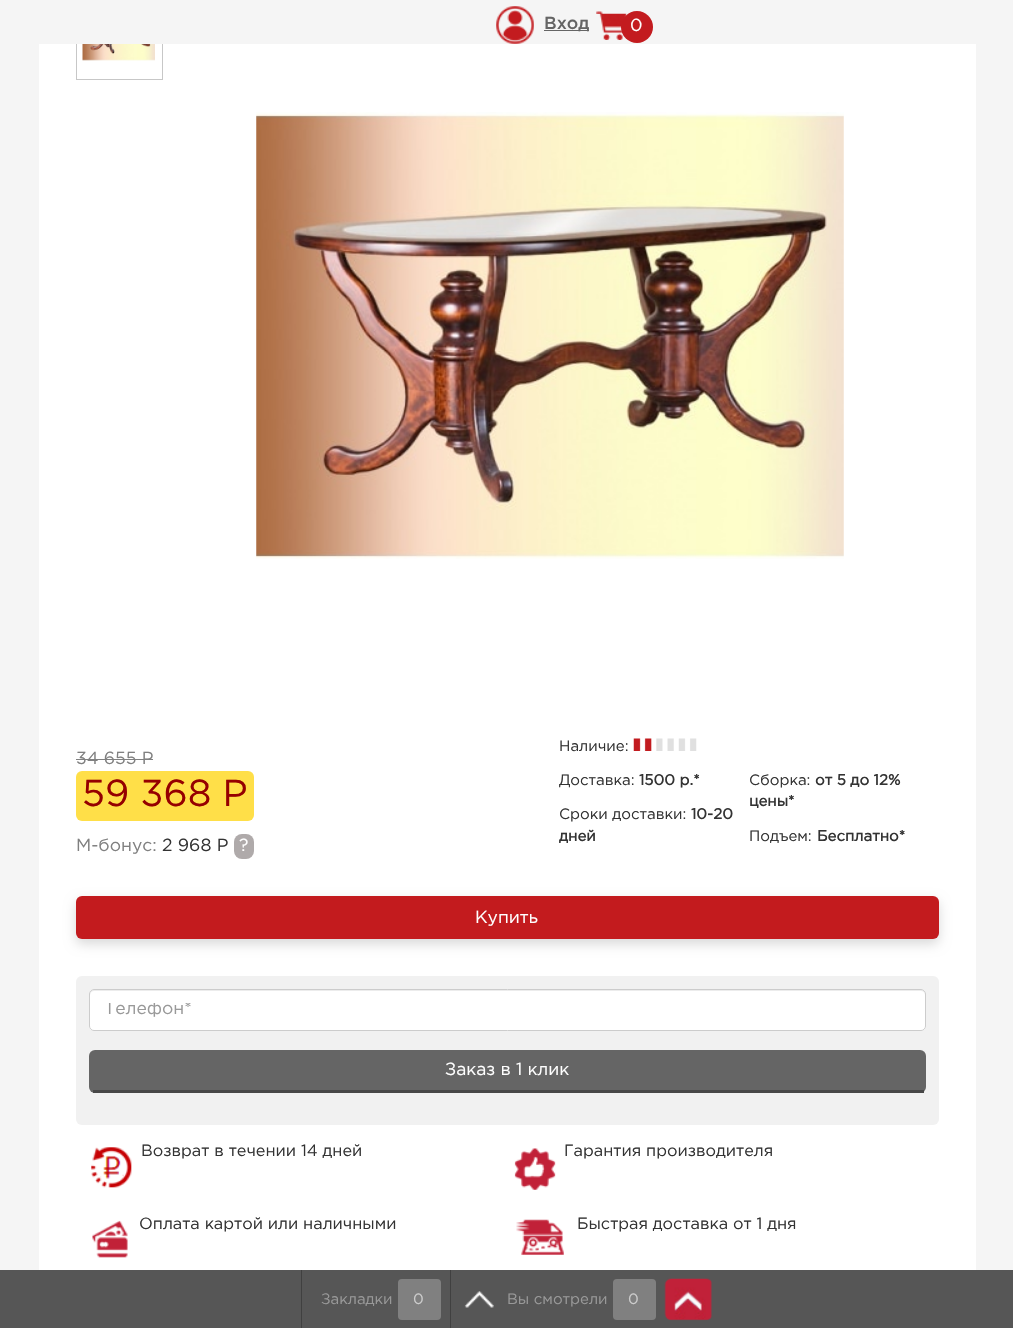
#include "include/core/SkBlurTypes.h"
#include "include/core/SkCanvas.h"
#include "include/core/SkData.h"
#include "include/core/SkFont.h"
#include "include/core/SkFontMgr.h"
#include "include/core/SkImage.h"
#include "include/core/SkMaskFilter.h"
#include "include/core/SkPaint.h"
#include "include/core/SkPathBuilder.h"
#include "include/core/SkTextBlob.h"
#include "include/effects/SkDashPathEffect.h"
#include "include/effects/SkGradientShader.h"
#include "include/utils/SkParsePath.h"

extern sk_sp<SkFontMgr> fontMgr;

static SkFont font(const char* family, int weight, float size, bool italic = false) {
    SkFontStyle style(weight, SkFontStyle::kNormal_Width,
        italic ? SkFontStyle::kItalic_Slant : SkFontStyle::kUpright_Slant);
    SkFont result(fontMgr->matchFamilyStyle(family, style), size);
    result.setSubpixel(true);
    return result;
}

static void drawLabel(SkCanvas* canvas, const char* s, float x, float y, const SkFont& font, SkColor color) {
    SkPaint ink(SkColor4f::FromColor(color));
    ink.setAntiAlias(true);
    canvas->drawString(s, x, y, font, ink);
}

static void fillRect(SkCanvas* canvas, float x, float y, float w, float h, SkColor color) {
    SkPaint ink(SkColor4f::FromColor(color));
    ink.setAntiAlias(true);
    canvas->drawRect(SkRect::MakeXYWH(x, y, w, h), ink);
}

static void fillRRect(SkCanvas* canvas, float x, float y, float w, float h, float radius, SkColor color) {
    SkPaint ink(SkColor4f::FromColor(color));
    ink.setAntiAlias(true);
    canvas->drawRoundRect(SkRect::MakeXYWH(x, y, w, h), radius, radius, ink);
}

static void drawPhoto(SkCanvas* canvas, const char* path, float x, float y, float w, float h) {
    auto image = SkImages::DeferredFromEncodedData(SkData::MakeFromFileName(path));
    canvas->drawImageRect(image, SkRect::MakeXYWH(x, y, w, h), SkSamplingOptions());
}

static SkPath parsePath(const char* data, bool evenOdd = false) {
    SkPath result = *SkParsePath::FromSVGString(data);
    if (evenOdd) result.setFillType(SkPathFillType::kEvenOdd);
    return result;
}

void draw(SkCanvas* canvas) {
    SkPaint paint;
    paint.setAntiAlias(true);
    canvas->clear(0xFFF5F5F5);
    fillRect(canvas, 39, 44, 937, 1226, 0xFFFFFFFF);
    paint.setStroke(true);
    paint.setStrokeWidth(1);
    paint.setColor(0xFFC7C7C7);
    canvas->drawRect(SkRect::MakeXYWH(76.5f, -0.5f, 86, 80), paint);
    fillRect(canvas, 76, 0, 87, 44, 0xFFF5F5F5);
    drawPhoto(canvas, "assets/img1.png", 496, 6, 38, 38);
    fillRect(canvas, 544, 30, 45, 1, 0xFF656565);
    SkFont font1 = font("Gotham", 500, 17.5f);
    drawLabel(canvas, "Вход", 544, 29, font1, 0xFF656565);
    drawPhoto(canvas, "assets/img2.png", 596, 11, 31, 29);
    paint.setStroke(false);
    paint.setColor(0xFFC31B1F);
    canvas->drawCircle(637, 27, 16, paint);
    SkFont font2 = font("Gotham", 400, 17.5f);
    drawLabel(canvas, "0", 630, 31, font2, 0xFFFFFFFF);
    drawPhoto(canvas, "assets/img3.png", 82, 44, 73, 17);
    drawPhoto(canvas, "assets/img4.png", 256, 112, 588, 447);
    drawLabel(canvas, "34 655 Р", 76, 764, font2, 0xFF808080);
    fillRect(canvas, 76, 759, 77, 1, 0xFF808080);
    fillRRect(canvas, 76, 771, 178, 50, 6, 0xFFFFDF48);
    SkFont font3 = font("Gotham", 400, 37.5f);
    drawLabel(canvas, "59 368 Р", 82, 806, font3, 0xFF950000);
    drawLabel(canvas, "M-бонус:", 76, 851, font2, 0xFF808080);
    drawLabel(canvas, "2 968 Р", 162, 851, font2, 0xFF333333);
    fillRRect(canvas, 234, 834, 20, 25, 8, 0xFFAFAAAA);
    drawLabel(canvas, "?", 239, 851, font2, 0xFFFFFFFF);
    SkFont font4 = font("Gotham", 400, 15);
    drawLabel(canvas, "Наличие:", 559, 751, font4, 0xFF333333);
    drawPhoto(canvas, "assets/img5.png", 633, 738, 64, 13);
    drawLabel(canvas, "Доставка:", 559, 785, font4, 0xFF333333);
    SkFont font5 = font("Gotham", 700, 15);
    drawLabel(canvas, "1500 р.*", 639, 785, font5, 0xFF333333);
    drawLabel(canvas, "Сроки доставки:", 559, 819, font4, 0xFF333333);
    drawLabel(canvas, "10-20", 691, 819, font5, 0xFF333333);
    drawLabel(canvas, "дней", 559, 841, font5, 0xFF333333);
    drawLabel(canvas, "Сборка:", 749, 785, font4, 0xFF333333);
    drawLabel(canvas, "от 5 до 12%", 815, 785, font5, 0xFF333333);
    drawLabel(canvas, "цены*", 749, 806, font5, 0xFF333333);
    drawLabel(canvas, "Подъем:", 749, 841, font4, 0xFF333333);
    drawLabel(canvas, "Бесплатно*", 817, 841, font5, 0xFF333333);
    paint.setColor(0xFFD9D9D9);
    paint.setMaskFilter(SkMaskFilter::MakeBlur(kNormal_SkBlurStyle, 6));
    canvas->drawRoundRect(SkRect::MakeXYWH(76, 901, 863, 43), 6, 6, paint);
    paint.setMaskFilter(nullptr);
    fillRRect(canvas, 76, 896, 863, 43, 6, 0xFFC31B1E);
    drawLabel(canvas, "Купить", 475, 923, font2, 0xFFFFFFFF);
    fillRRect(canvas, 76, 976, 863, 149, 6, 0xFFF1F1F1);
    fillRRect(canvas, 89, 989, 837, 42, 5, 0xFFFFFFFF);
    paint.setColor(0xFFECECEC);
    canvas->drawPath(parsePath("M94 991H921C923 991 925 993 925 995C925 992 924 990 921 990H94C91 990 90 992 90 995C90 993 92 991 94 991Z"), paint);
    paint.setStroke(true);
    paint.setColor(0xFFCCCCCC);
    canvas->drawRoundRect(SkRect::MakeXYWH(89.5f, 989.5f, 836, 41), 4.5f, 4.5f, paint);
    canvas->save();
    canvas->clipRect(SkRect::MakeXYWH(105, 1003, 805, 16));
    drawLabel(canvas, "Телефон*", 104, 1014, font2, 0xFF999999);
    canvas->restore();
    fillRRect(canvas, 89, 1050, 837, 43, 6, 0xFF656565);
    fillRect(canvas, 93, 1090, 831, 3, 0xFF484848);
    drawLabel(canvas, "Заказ в 1 клик", 445, 1075, font2, 0xFFFFFFFF);
    drawPhoto(canvas, "assets/img6.png", 91, 1147, 41, 41);
    SkFont font6 = font("Gotham", 400, 16.25f);
    drawLabel(canvas, "Возврат в течении 14 дней", 141, 1156, font6, 0xFF333333);
    drawPhoto(canvas, "assets/img7.png", 514, 1148, 42, 42);
    drawLabel(canvas, "Гарантия производителя", 564, 1156, font6, 0xFF333333);
    drawPhoto(canvas, "assets/img8.png", 92, 1220, 36, 38);
    drawLabel(canvas, "Оплата картой или наличными", 139, 1229, font6, 0xFF333333);
    drawPhoto(canvas, "assets/img9.png", 516, 1219, 48, 36);
    drawLabel(canvas, "Быстрая доставка от 1 дня", 577, 1229, font6, 0xFF333333);
    fillRect(canvas, 0, 1270, 1013, 58, 0xFF565656);
    fillRect(canvas, 301, 1270, 1, 58, 0xFF404040);
    drawLabel(canvas, "Закладки", 321, 1304, font4, 0xFF999999);
    fillRRect(canvas, 398, 1279, 43, 41, 4, 0xFF808080);
    drawLabel(canvas, "0", 413, 1304, font4, 0xFFCCCCCC);
    fillRect(canvas, 450, 1270, 1, 58, 0xFF404040);
    drawPhoto(canvas, "assets/img10.png", 464, 1291, 30, 17);
    drawLabel(canvas, "Вы смотрели", 507, 1304, font4, 0xFF999999);
    fillRRect(canvas, 613, 1279, 43, 41, 4, 0xFF808080);
    drawLabel(canvas, "0", 628, 1304, font4, 0xFFCCCCCC);
    drawPhoto(canvas, "assets/img11.png", 664, 1278, 48, 43);
}
